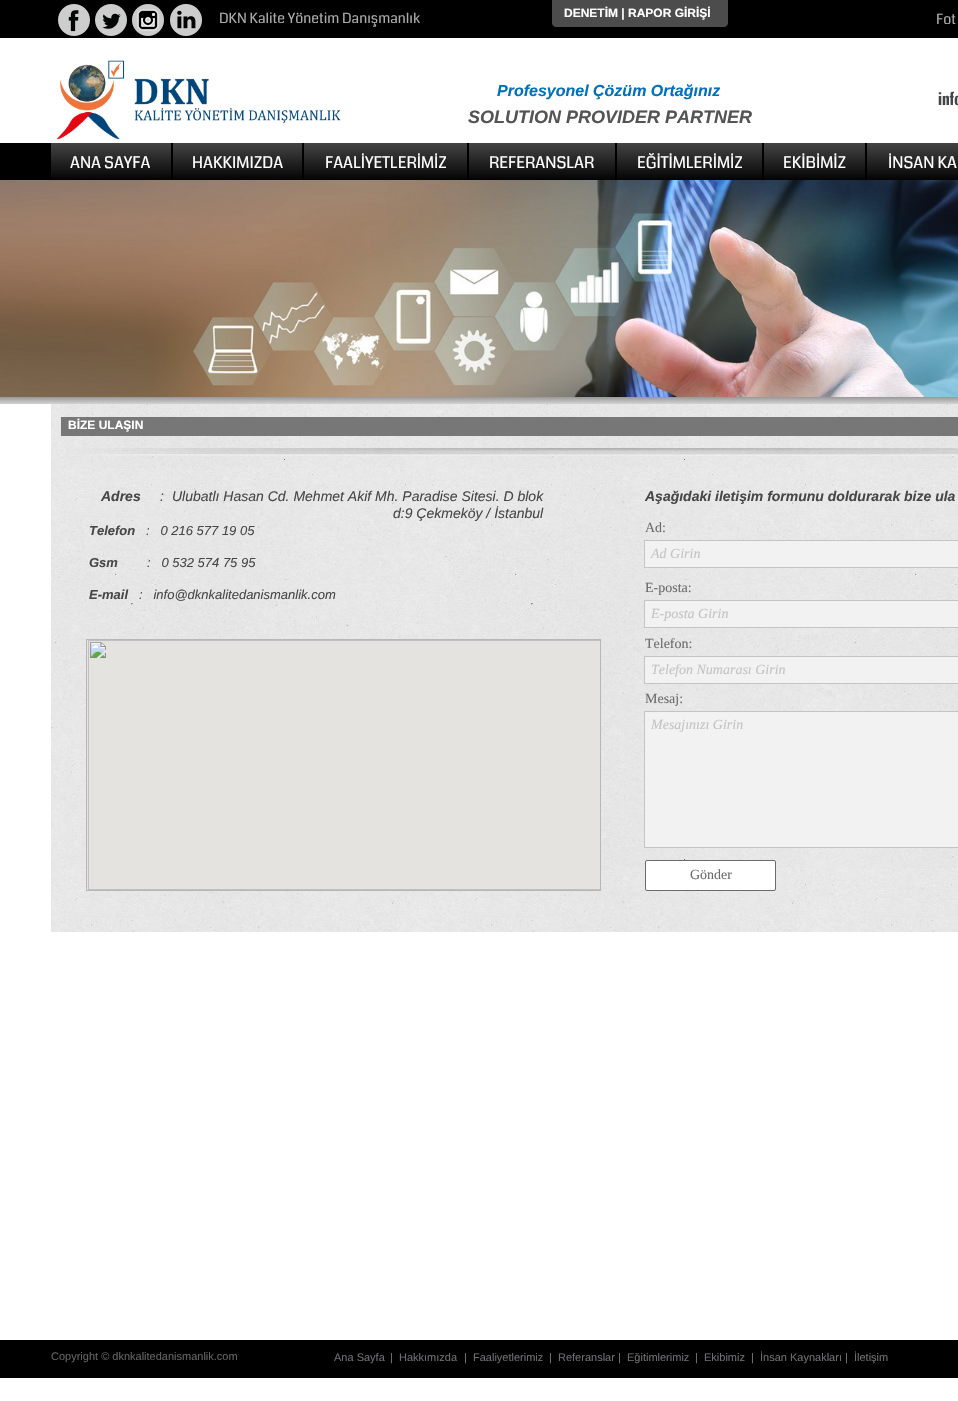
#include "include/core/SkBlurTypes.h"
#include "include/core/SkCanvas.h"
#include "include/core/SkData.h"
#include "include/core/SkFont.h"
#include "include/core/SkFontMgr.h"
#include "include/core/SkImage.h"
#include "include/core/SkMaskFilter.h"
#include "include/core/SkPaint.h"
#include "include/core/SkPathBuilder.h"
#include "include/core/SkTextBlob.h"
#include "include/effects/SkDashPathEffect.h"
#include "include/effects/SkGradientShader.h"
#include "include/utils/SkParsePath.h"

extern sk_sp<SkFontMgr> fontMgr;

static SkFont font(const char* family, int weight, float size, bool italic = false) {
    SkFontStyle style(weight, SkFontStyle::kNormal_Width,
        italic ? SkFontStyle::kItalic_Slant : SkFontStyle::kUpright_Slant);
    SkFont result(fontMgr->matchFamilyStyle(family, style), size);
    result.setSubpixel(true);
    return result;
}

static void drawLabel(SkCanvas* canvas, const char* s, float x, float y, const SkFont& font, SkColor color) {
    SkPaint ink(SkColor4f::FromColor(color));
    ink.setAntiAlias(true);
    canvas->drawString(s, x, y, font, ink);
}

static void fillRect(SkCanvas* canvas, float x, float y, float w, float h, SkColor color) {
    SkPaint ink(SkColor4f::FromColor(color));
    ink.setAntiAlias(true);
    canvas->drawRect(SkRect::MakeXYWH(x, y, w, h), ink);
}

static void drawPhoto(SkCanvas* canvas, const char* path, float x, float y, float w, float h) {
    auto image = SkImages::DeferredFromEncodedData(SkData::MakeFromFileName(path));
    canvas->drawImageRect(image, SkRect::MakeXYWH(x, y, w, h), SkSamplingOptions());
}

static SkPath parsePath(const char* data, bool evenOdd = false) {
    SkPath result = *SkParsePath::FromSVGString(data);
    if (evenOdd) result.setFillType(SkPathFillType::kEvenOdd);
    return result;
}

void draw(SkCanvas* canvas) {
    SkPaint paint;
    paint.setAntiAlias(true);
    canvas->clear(0xFFFFFFFF);
    fillRect(canvas, 0, 0, 958, 38, 0xFF000000);
    drawPhoto(canvas, "assets/img1.png", 58, 4, 32, 32);
    drawPhoto(canvas, "assets/img2.png", 95, 4, 32, 32);
    drawPhoto(canvas, "assets/img3.png", 132, 4, 32, 32);
    drawPhoto(canvas, "assets/img4.png", 170, 4, 32, 32);
    SkFont font1 = font("Coda", 400, 14);
    drawLabel(canvas, "DKN Kalite Yönetim Danışmanlık", 219, 23, font1, 0xFFAAAAAA);
    paint.setColor(0xFF4C4C4C);
    canvas->drawPath(parsePath("M552 0H728V23C728 25 726 27 724 27H556C554 27 552 25 552 23Z"), paint);
    SkFont font2 = font("Liberation Sans", 700, 12);
    drawLabel(canvas, "DENETİM | RAPOR GİRİŞİ", 564, 17, font2, 0xFFFFFFFF);
    drawLabel(canvas, "Fot", 936, 24, font1, 0xFFAAAAAA);
    drawPhoto(canvas, "assets/img5.png", 56, 60, 285, 80);
    SkFont font3 = font("Liberation Sans", 700, 16, true);
    drawLabel(canvas, "Profesyonel Çözüm Ortağınız", 497, 96, font3, 0xFF0071BC);
    SkFont font4 = font("Liberation Sans", 700, 18, true);
    drawLabel(canvas, "SOLUTION PROVIDER PARTNER", 468, 123, font4, 0xFF545454);
    drawPhoto(canvas, "assets/img6.png", 938, 91, 20, 15);
    fillRect(canvas, 0, 143, 867, 37, 0xFF000000);
    {
        const SkColor colors[] = {0xFF444444, 0xFF000000};
        const float stops[] = {0, 1};
        const SkPoint ends[] = {{111, 143}, {111, 182}};
        paint.setShader(SkGradientShader::MakeLinear(ends, colors, stops, 2, SkTileMode::kClamp));
        paint.setAlpha(255);
    }
    canvas->drawRect(SkRect::MakeXYWH(51, 143, 120, 37), paint);
    SkFont font5 = font("Coda", 400, 16);
    drawLabel(canvas, "ANA SAYFA", 70, 168, font5, 0xFFFFFFFF);
    {
        const SkColor colors[] = {0xFF444444, 0xFF000000};
        const float stops[] = {0, 1};
        const SkPoint ends[] = {{238, 143}, {238, 182}};
        paint.setShader(SkGradientShader::MakeLinear(ends, colors, stops, 2, SkTileMode::kClamp));
        paint.setAlpha(255);
    }
    canvas->drawRect(SkRect::MakeXYWH(173, 143, 129, 37), paint);
    drawLabel(canvas, "HAKKIMIZDA", 192, 168, font5, 0xFFFFFFFF);
    {
        const SkColor colors[] = {0xFF444444, 0xFF000000};
        const float stops[] = {0, 1};
        const SkPoint ends[] = {{386, 143}, {386, 182}};
        paint.setShader(SkGradientShader::MakeLinear(ends, colors, stops, 2, SkTileMode::kClamp));
        paint.setAlpha(255);
    }
    canvas->drawRect(SkRect::MakeXYWH(304, 143, 163, 37), paint);
    drawLabel(canvas, "FAALİYETLERİMİZ", 325, 168, font5, 0xFFFFFFFF);
    {
        const SkColor colors[] = {0xFF444444, 0xFF000000};
        const float stops[] = {0, 1};
        const SkPoint ends[] = {{542, 143}, {542, 182}};
        paint.setShader(SkGradientShader::MakeLinear(ends, colors, stops, 2, SkTileMode::kClamp));
        paint.setAlpha(255);
    }
    canvas->drawRect(SkRect::MakeXYWH(469, 143, 146, 37), paint);
    drawLabel(canvas, "REFERANSLAR", 489, 168, font5, 0xFFFFFFFF);
    {
        const SkColor colors[] = {0xFF444444, 0xFF000000};
        const float stops[] = {0, 1};
        const SkPoint ends[] = {{690, 143}, {690, 182}};
        paint.setShader(SkGradientShader::MakeLinear(ends, colors, stops, 2, SkTileMode::kClamp));
        paint.setAlpha(255);
    }
    canvas->drawRect(SkRect::MakeXYWH(617, 143, 145, 37), paint);
    drawLabel(canvas, "EĞİTİMLERİMİZ", 637, 168, font5, 0xFFFFFFFF);
    {
        const SkColor colors[] = {0xFF444444, 0xFF000000};
        const float stops[] = {0, 1};
        const SkPoint ends[] = {{815, 143}, {815, 182}};
        paint.setShader(SkGradientShader::MakeLinear(ends, colors, stops, 2, SkTileMode::kClamp));
        paint.setAlpha(255);
    }
    canvas->drawRect(SkRect::MakeXYWH(764, 143, 101, 37), paint);
    drawLabel(canvas, "EKİBİMİZ", 783, 168, font5, 0xFFFFFFFF);
    {
        const SkColor colors[] = {0xFF444444, 0xFF000000};
        const float stops[] = {0, 1};
        const SkPoint ends[] = {{958, 143}, {958, 182}};
        paint.setShader(SkGradientShader::MakeLinear(ends, colors, stops, 2, SkTileMode::kClamp));
        paint.setAlpha(255);
    }
    canvas->drawRect(SkRect::MakeXYWH(867, 143, 91, 37), paint);
    drawLabel(canvas, "İNSAN KA", 888, 168, font5, 0xFFFFFFFF);
    drawPhoto(canvas, "assets/img7.png", 0, 180, 958, 217);
    {
        const SkColor colors[] = {0xFF7F7F7F, 0xFFD3D3D3};
        const float stops[] = {0, 1};
        const SkPoint ends[] = {{600, 394}, {600, 404}};
        paint.setShader(SkGradientShader::MakeLinear(ends, colors, stops, 2, SkTileMode::kClamp));
        paint.setAlpha(255);
    }
    canvas->drawRect(SkRect::MakeXYWH(0, 397, 958, 7), paint);
    drawPhoto(canvas, "assets/img8.png", 51, 404, 907, 528);
    fillRect(canvas, 61, 417, 897, 19, 0xFF777777);
    drawLabel(canvas, "BİZE ULAŞIN", 68, 429, font2, 0xFFFFFFFF);
    drawPhoto(canvas, "assets/img9.png", 60, 448, 898, 8);
    SkFont font6 = font("Liberation Sans", 700, 14, true);
    drawLabel(canvas, "Adres", 101, 501, font6, 0xFF474747);
    SkFont font7 = font("Liberation Sans", 400, 14, true);
    drawLabel(canvas, ":", 160, 501, font7, 0xFF474747);
    drawLabel(canvas, "Ulubatlı Hasan Cd. Mehmet Akif Mh. Paradise Sitesi. D blok", 172, 501, font7, 0xFF474747);
    drawLabel(canvas, "d:9 Çekmeköy / İstanbul", 393, 518, font7, 0xFF474747);
    drawLabel(canvas, "Aşağıdaki iletişim formunu doldurarak bize ula", 645, 501, font6, 0xFF474747);
    SkFont font8 = font("Liberation Sans", 700, 13, true);
    drawLabel(canvas, "Telefon", 89, 535, font8, 0xFF474747);
    SkFont font9 = font("Liberation Sans", 400, 13, true);
    drawLabel(canvas, ":   0 216 577 19 05", 146, 535, font9, 0xFF474747);
    drawLabel(canvas, "Gsm", 89, 567, font8, 0xFF474747);
    drawLabel(canvas, ":   0 532 574 75 95", 147, 567, font9, 0xFF474747);
    drawLabel(canvas, "E-mail", 89, 599, font8, 0xFF474747);
    drawLabel(canvas, ":   info@dknkalitedanismanlik.com", 139, 599, font9, 0xFF474747);
    SkFont font10 = font("Liberation Serif", 400, 14);
    drawLabel(canvas, "Ad:", 645, 532, font10, 0xFF6B6B6B);
    paint.setShader(nullptr);
    paint.setColor(0xFFF2F2F2);
    canvas->drawRect(SkRect::MakeXYWH(644.5f, 540.5f, 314, 27), paint);
    paint.setStroke(true);
    paint.setStrokeWidth(1);
    paint.setColor(0xFFC4C4C4);
    canvas->drawRect(SkRect::MakeXYWH(644.5f, 540.5f, 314, 27), paint);
    SkFont font11 = font("Liberation Serif", 400, 14, true);
    drawLabel(canvas, "Ad Girin", 651, 558, font11, 0xFFC4C4C4);
    drawLabel(canvas, "E-posta:", 645, 592, font10, 0xFF6B6B6B);
    paint.setStroke(false);
    paint.setColor(0xFFF2F2F2);
    canvas->drawRect(SkRect::MakeXYWH(644.5f, 600.5f, 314, 27), paint);
    paint.setStroke(true);
    paint.setColor(0xFFC4C4C4);
    canvas->drawRect(SkRect::MakeXYWH(644.5f, 600.5f, 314, 27), paint);
    drawLabel(canvas, "E-posta Girin", 651, 618, font11, 0xFFC4C4C4);
    drawLabel(canvas, "Telefon:", 645, 648, font10, 0xFF6B6B6B);
    paint.setStroke(false);
    paint.setColor(0xFFF2F2F2);
    canvas->drawRect(SkRect::MakeXYWH(644.5f, 656.5f, 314, 27), paint);
    paint.setStroke(true);
    paint.setColor(0xFFC4C4C4);
    canvas->drawRect(SkRect::MakeXYWH(644.5f, 656.5f, 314, 27), paint);
    drawLabel(canvas, "Telefon Numarası Girin", 651, 674, font11, 0xFFC4C4C4);
    drawLabel(canvas, "Mesaj:", 645, 703, font10, 0xFF6B6B6B);
    paint.setStroke(false);
    paint.setColor(0xFFF2F2F2);
    canvas->drawRect(SkRect::MakeXYWH(644.5f, 711.5f, 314, 136), paint);
    paint.setStroke(true);
    paint.setColor(0xFFC4C4C4);
    canvas->drawRect(SkRect::MakeXYWH(644.5f, 711.5f, 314, 136), paint);
    drawLabel(canvas, "Mesajınızı Girin", 651, 729, font11, 0xFFC4C4C4);
    paint.setStroke(false);
    paint.setColor(0xFFFFFFFF);
    canvas->drawRoundRect(SkRect::MakeXYWH(645.5f, 860.5f, 130, 30), 1.5f, 1.5f, paint);
    paint.setStroke(true);
    paint.setColor(0xFF6B6B6B);
    canvas->drawRoundRect(SkRect::MakeXYWH(645.5f, 860.5f, 130, 30), 1.5f, 1.5f, paint);
    drawLabel(canvas, "Gönder", 690, 879, font10, 0xFF6B6B6B);
    paint.setColor(0xFFB7B7B7);
    canvas->drawRect(SkRect::MakeXYWH(86.5f, 639.5f, 514, 251), paint);
    drawPhoto(canvas, "assets/img10.png", 87, 640, 513, 250);
    fillRect(canvas, 0, 1340, 958, 38, 0xFF000000);
    SkFont font12 = font("Liberation Sans", 400, 11);
    drawLabel(canvas, "Copyright © dknkalitedanismanlik.com", 51, 1360, font12, 0xFF636363);
    drawLabel(canvas, "Ana Sayfa", 334, 1361, font12, 0xFF6F6F73);
    drawLabel(canvas, "|", 390, 1361, font12, 0xFF777777);
    drawLabel(canvas, "Hakkımızda", 399, 1361, font12, 0xFF6F6F73);
    drawLabel(canvas, "|", 464, 1361, font12, 0xFF777777);
    drawLabel(canvas, "Faaliyetlerimiz", 473, 1361, font12, 0xFF6F6F73);
    drawLabel(canvas, "|", 549, 1361, font12, 0xFF777777);
    drawLabel(canvas, "Referanslar", 558, 1361, font12, 0xFF6F6F73);
    drawLabel(canvas, "|", 618, 1361, font12, 0xFF777777);
    drawLabel(canvas, "Eğitimlerimiz", 627, 1361, font12, 0xFF6F6F73);
    drawLabel(canvas, "|", 695, 1361, font12, 0xFF777777);
    drawLabel(canvas, "Ekibimiz", 704, 1361, font12, 0xFF6F6F73);
    drawLabel(canvas, "|", 751, 1361, font12, 0xFF777777);
    drawLabel(canvas, "İnsan Kaynakları", 760, 1361, font12, 0xFF6F6F73);
    drawLabel(canvas, "|", 845, 1361, font12, 0xFF777777);
    drawLabel(canvas, "İletişim", 854, 1361, font12, 0xFF6F6F73);
}
